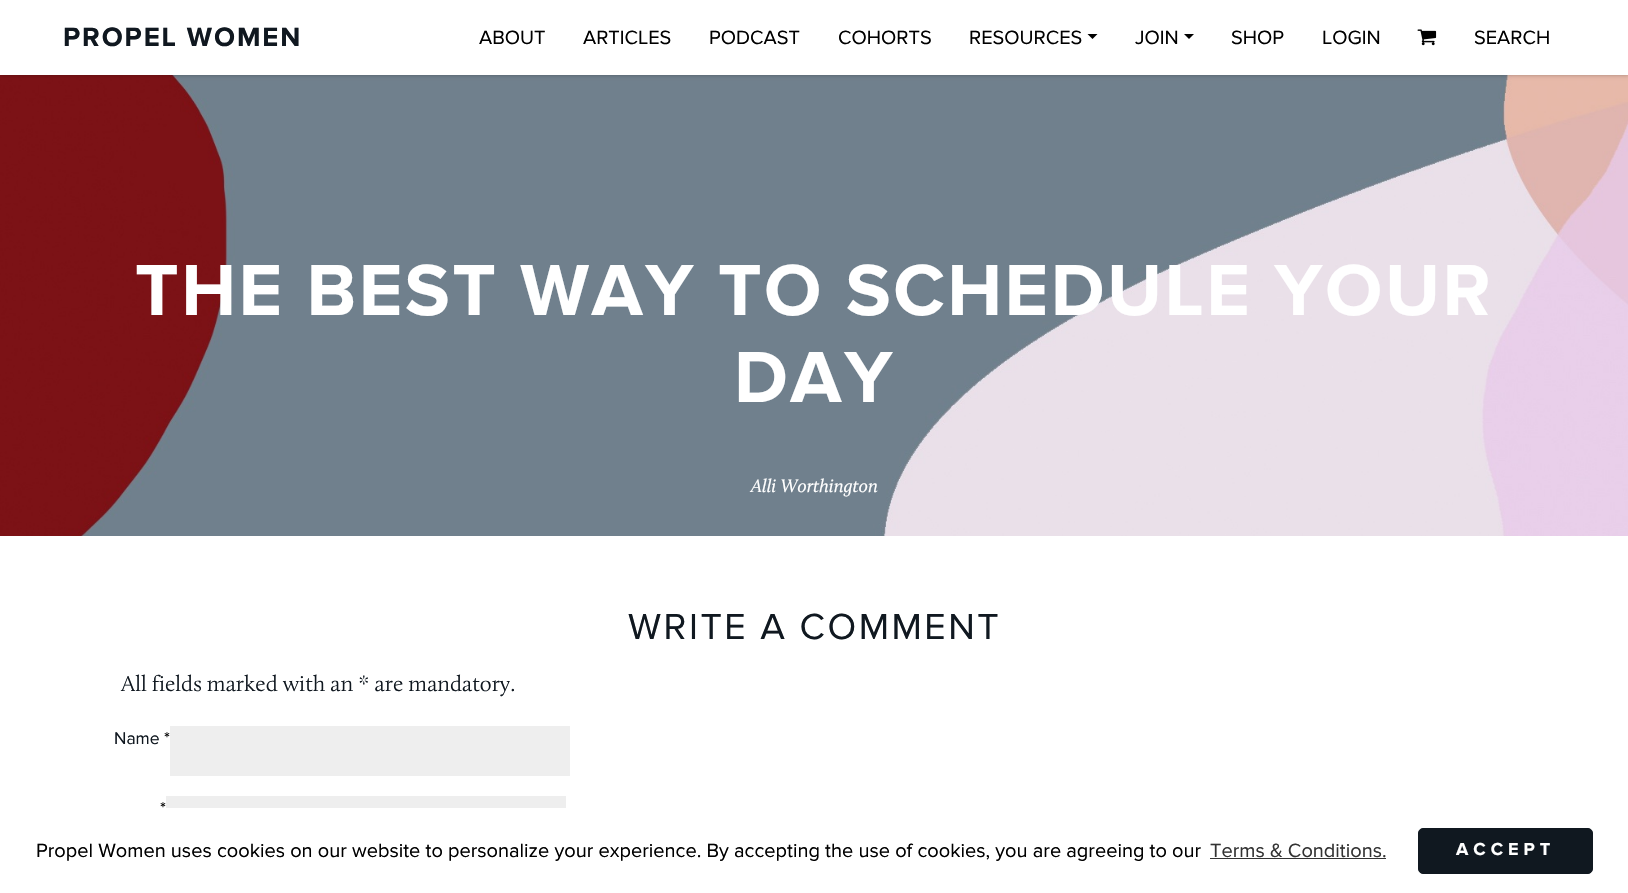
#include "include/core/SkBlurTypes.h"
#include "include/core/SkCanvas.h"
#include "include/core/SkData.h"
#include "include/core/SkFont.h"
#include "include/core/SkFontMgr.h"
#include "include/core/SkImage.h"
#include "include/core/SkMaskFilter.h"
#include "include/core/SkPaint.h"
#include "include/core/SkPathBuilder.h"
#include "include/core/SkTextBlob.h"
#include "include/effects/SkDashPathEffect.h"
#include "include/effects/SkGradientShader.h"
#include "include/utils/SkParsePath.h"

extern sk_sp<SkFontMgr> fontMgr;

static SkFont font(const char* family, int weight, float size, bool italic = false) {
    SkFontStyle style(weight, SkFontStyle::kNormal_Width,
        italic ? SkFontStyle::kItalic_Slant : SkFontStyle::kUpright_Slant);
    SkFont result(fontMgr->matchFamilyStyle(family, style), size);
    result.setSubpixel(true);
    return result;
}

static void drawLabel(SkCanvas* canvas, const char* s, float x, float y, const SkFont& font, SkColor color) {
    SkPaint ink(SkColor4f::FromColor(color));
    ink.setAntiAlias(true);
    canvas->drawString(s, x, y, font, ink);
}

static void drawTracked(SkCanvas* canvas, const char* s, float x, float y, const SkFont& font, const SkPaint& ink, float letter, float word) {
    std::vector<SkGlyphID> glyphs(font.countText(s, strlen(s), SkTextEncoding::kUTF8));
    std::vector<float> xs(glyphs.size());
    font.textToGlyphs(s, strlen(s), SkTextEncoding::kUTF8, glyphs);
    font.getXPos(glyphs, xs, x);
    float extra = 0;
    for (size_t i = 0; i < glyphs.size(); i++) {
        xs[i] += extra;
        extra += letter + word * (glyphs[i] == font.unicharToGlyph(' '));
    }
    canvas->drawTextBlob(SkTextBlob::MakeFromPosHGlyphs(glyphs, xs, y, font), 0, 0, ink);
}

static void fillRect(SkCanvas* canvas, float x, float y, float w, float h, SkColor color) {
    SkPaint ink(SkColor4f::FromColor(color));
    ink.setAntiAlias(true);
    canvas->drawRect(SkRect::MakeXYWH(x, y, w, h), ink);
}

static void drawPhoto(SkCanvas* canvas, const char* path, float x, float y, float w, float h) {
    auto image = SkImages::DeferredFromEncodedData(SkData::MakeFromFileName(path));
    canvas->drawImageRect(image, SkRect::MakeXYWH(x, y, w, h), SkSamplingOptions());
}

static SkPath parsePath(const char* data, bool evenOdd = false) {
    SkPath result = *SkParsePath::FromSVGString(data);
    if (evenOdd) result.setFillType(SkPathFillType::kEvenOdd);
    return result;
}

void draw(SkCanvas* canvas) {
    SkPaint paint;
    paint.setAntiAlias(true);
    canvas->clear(0xFFFFFFFF);
    drawPhoto(canvas, "assets/img2.png", 0, 75, 1628, 461);
    paint.setColor(0x4A000000);
    paint.setMaskFilter(SkMaskFilter::MakeBlur(kNormal_SkBlurStyle, 2));
    canvas->drawRect(SkRect::MakeXYWH(0, 0, 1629, 75), paint);
    paint.setMaskFilter(nullptr);
    fillRect(canvas, 0, 0, 1628, 75, 0xFFFFFFFF);
    SkFont font1 = font("Proxima Nova", 700, 27.5f);
    paint.setColor(0xFF101820);
    drawTracked(canvas, "PROPEL WOMEN", 63, 46, font1, paint, 1.9f, 0);
    SkFont font2 = font("Proxima Nova", 400, 20);
    drawLabel(canvas, "ABOUT", 479, 44, font2, 0xFF000000);
    drawLabel(canvas, "ARTICLES", 583, 44, font2, 0xFF000000);
    drawLabel(canvas, "PODCAST", 709, 44, font2, 0xFF000000);
    drawLabel(canvas, "COHORTS", 838, 44, font2, 0xFF000000);
    drawLabel(canvas, "RESOURCES", 969, 44, font2, 0xFF000000);
    paint.setColor(0xFF000000);
    canvas->drawPath(parsePath("M1087.5 34H1097.5L1092.5 39Z"), paint);
    drawLabel(canvas, "JOIN", 1135, 44, font2, 0xFF000000);
    canvas->drawPath(parsePath("M1184 34H1194L1189 39Z"), paint);
    drawLabel(canvas, "SHOP", 1231, 44, font2, 0xFF000000);
    drawLabel(canvas, "LOGIN", 1322, 44, font2, 0xFF000000);
    drawPhoto(canvas, "assets/img1.png", 1417, 29, 20, 17);
    drawLabel(canvas, "SEARCH", 1474, 44, font2, 0xFF000000);
    SkFont font3 = font("Proxima Nova", 700, 75);
    paint.setColor(0xFFFFFFFF);
    drawTracked(canvas, "THE BEST WAY TO SCHEDULE YOUR", 135, 315, font3, paint, 2.5f, 0);
    drawTracked(canvas, "DAY", 734, 402, font3, paint, 2.5f, 0);
    SkFont font4 = font("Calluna", 400, 18.75f, true);
    drawLabel(canvas, "Alli Worthington", 751, 492, font4, 0xFFFFFFFF);
    SkFont font5 = font("Proxima Nova", 400, 37.5f);
    paint.setColor(0xFF101820);
    drawTracked(canvas, "WRITE A COMMENT", 628, 639, font5, paint, 2.5f, 0);
    SkFont font6 = font("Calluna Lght", 300, 22.5f);
    drawLabel(canvas, "All fields marked with an * are mandatory.", 121, 691, font6, 0xFF101820);
    SkFont font7 = font("Proxima Nova", 400, 17.5f);
    drawLabel(canvas, "Name", 114, 744, font7, 0xFF101820);
    drawLabel(canvas, "*", 164, 744, font7, 0xFF000000);
    fillRect(canvas, 170, 726, 400, 50, 0xFFEEEEEE);
    drawLabel(canvas, "*", 160, 814, font7, 0xFF000000);
    fillRect(canvas, 166, 796, 400, 12, 0xFFEEEEEE);
    drawLabel(canvas, "Propel Women uses cookies on our website to personalize your experience. By accepting the use of cookies, you are agreeing to our", 36, 857, font2, 0xFF000000);
    drawLabel(canvas, "Terms & Conditions.", 1210, 857, font2, 0xFF333333);
    fillRect(canvas, 1210, 858, 176, 1, 0xFF333333);
    canvas->drawRoundRect(SkRect::MakeXYWH(1418.5f, 828.5f, 174, 45), 4.5f, 4.5f, paint);
    paint.setStroke(true);
    paint.setStrokeWidth(1);
    canvas->drawRoundRect(SkRect::MakeXYWH(1418.5f, 828.5f, 174, 45), 4.5f, 4.5f, paint);
    SkFont font8 = font("Proxima Nova", 700, 18);
    paint.setStroke(false);
    paint.setColor(0xFFFFFFFF);
    drawTracked(canvas, "ACCEPT", 1456, 855, font8, paint, 5, 0);
}
